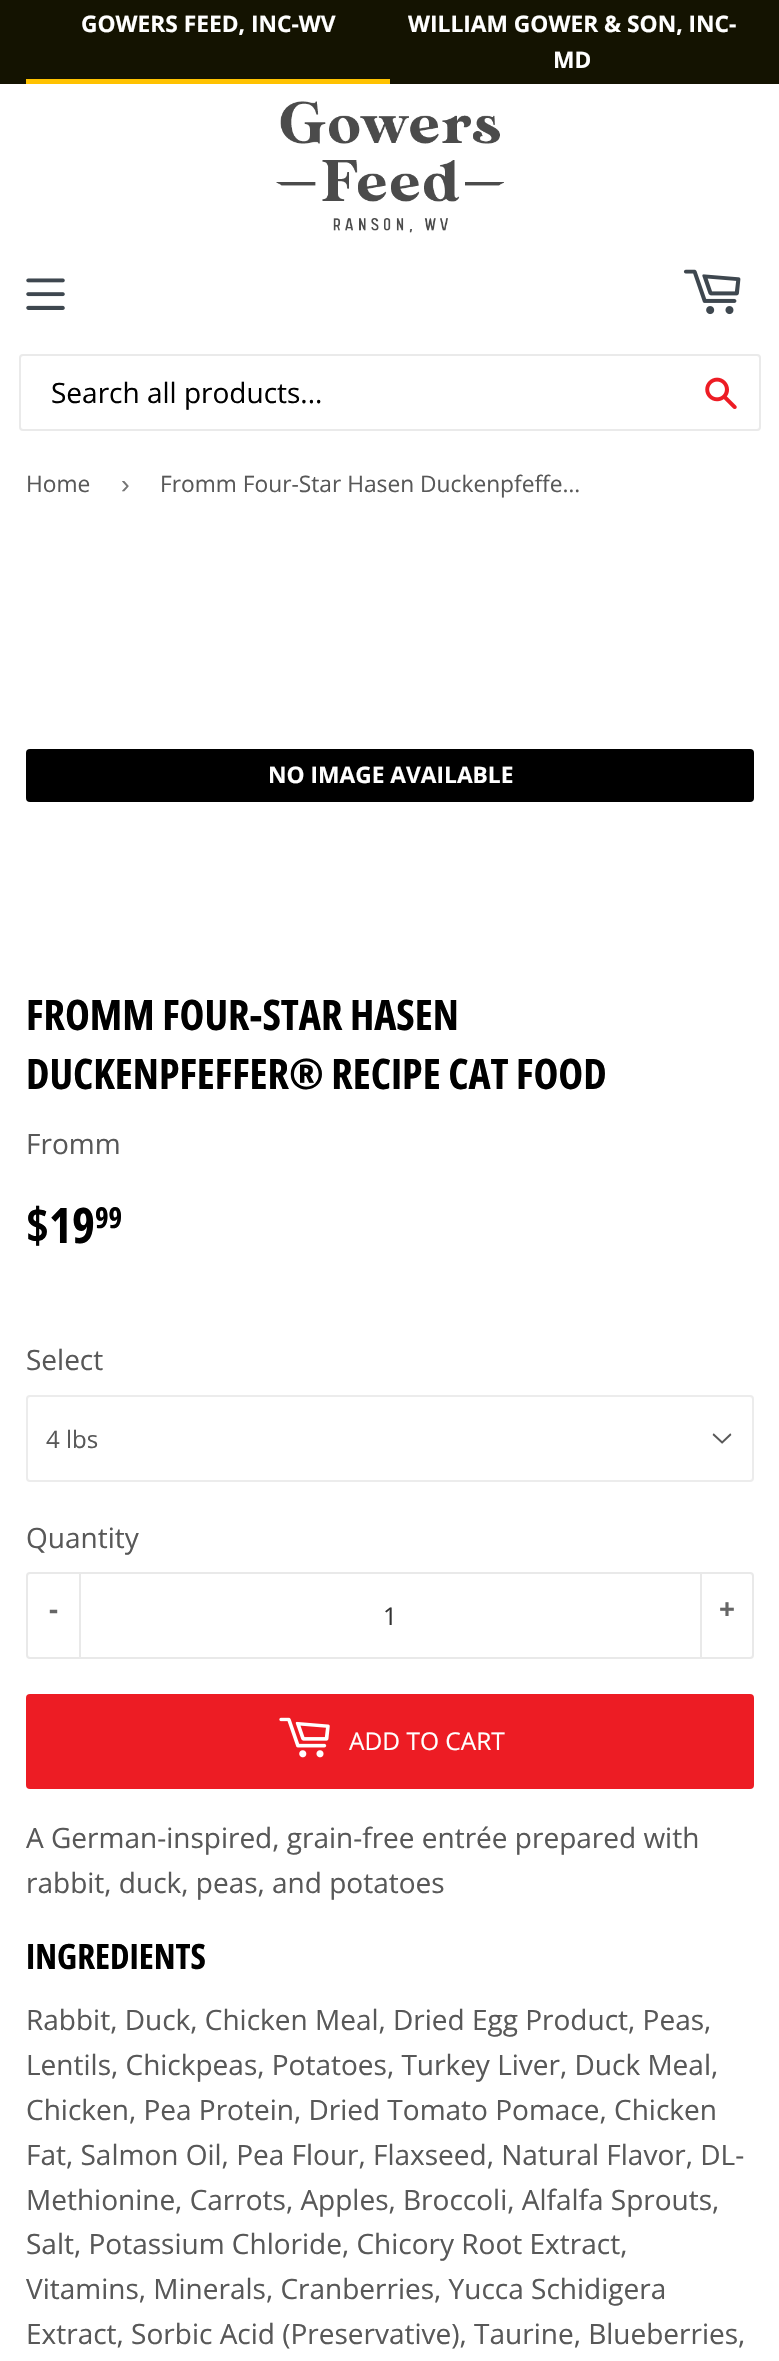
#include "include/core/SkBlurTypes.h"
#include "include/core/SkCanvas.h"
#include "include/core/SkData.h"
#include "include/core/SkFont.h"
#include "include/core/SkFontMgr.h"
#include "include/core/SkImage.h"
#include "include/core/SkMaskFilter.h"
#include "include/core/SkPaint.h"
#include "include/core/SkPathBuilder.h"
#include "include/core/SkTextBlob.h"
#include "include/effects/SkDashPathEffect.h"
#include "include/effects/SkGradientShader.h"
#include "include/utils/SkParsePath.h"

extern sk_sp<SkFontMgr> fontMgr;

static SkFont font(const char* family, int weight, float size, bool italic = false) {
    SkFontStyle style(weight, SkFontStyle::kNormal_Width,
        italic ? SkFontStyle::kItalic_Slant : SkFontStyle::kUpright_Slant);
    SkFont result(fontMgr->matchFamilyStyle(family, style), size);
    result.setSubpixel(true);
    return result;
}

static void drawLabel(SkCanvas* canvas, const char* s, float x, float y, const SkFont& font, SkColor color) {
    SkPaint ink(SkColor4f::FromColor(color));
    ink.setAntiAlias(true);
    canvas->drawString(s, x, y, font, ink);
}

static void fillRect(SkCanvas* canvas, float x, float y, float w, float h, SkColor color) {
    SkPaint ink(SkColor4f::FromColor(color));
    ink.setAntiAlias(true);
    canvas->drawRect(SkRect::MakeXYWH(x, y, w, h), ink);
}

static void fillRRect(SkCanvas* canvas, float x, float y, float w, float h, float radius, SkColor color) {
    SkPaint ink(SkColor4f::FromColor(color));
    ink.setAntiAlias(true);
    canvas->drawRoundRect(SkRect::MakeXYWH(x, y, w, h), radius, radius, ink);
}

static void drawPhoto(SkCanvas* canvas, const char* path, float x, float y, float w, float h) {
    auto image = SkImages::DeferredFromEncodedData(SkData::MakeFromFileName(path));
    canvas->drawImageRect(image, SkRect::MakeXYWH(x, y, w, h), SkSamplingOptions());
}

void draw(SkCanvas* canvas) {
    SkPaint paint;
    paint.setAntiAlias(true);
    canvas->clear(0xFFFFFFFF);
    fillRect(canvas, 0, 0, 779, 84, 0xFF141301);
    fillRect(canvas, 26, 79, 364, 5, 0xFFFFC200);
    SkFont font1 = font("Open Sans", 700, 22.75f);
    drawLabel(canvas, "GOWERS FEED, INC-WV", 81, 32, font1, 0xFFFFFFFF);
    drawLabel(canvas, "WILLIAM GOWER & SON, INC-", 408, 32, font1, 0xFFFFFFFF);
    drawLabel(canvas, "MD", 553, 68, font1, 0xFFFFFFFF);
    drawPhoto(canvas, "assets/img1.png", 276, 101, 228, 132);
    drawPhoto(canvas, "assets/img2.png", 26, 278, 39, 32);
    drawPhoto(canvas, "assets/img3.png", 683, 269, 58, 46);
    paint.setStroke(true);
    paint.setStrokeWidth(2);
    paint.setColor(0xFFEAEAEA);
    canvas->drawRoundRect(SkRect::MakeXYWH(20, 355, 740, 75), 3, 3, paint);
    SkFont font2 = font("Open Sans", 400, 28);
    drawLabel(canvas, "Search all products...", 51, 403, font2, 0xFF000000);
    drawPhoto(canvas, "assets/img4.png", 705, 377, 32, 32);
    SkFont font3 = font("Open Sans", 400, 22.75f);
    drawLabel(canvas, "Home", 26, 492, font3, 0xFF585858);
    SkFont font4 = font("Liberation Sans", 400, 26);
    drawLabel(canvas, "›", 121, 493, font4, 0xFF767676);
    drawLabel(canvas, "Fromm Four-Star Hasen Duckenpfeffe…", 160, 492, font3, 0xFF585858);
    fillRRect(canvas, 26, 749, 728, 53, 4, 0xFF000000);
    drawLabel(canvas, "NO IMAGE AVAILABLE", 268, 783, font1, 0xFFFFFFFF);
    SkFont font5 = font("Open Sans Condensed", 700, 42);
    drawLabel(canvas, "FROMM FOUR-STAR HASEN", 26, 1030, font5, 0xFF000000);
    drawLabel(canvas, "DUCKENPFEFFER® RECIPE CAT FOOD", 26, 1089, font5, 0xFF000000);
    drawLabel(canvas, "Fromm", 26, 1154, font2, 0xFF585858);
    SkFont font6 = font("Open Sans Condensed", 700, 49);
    drawLabel(canvas, "$19", 26, 1243, font6, 0xFF000000);
    SkFont font7 = font("Open Sans Condensed", 700, 29);
    drawLabel(canvas, "99", 95, 1228, font7, 0xFF000000);
    drawLabel(canvas, "Select", 26, 1370, font2, 0xFF585858);
    drawPhoto(canvas, "assets/img5.png", 712, 1433, 20, 11);
    paint.setColor(0xFFECECEC);
    canvas->drawRoundRect(SkRect::MakeXYWH(27, 1396, 726, 85), 3, 3, paint);
    SkFont font8 = font("Open Sans", 400, 24);
    drawLabel(canvas, "4 lbs", 46, 1448, font8, 0xFF585858);
    drawLabel(canvas, "Quantity", 26, 1548, font2, 0xFF585858);
    paint.setColor(0xFFE9E9E9);
    canvas->drawRoundRect(SkRect::MakeXYWH(27, 1573, 726, 85), 3, 3, paint);
    fillRect(canvas, 79, 1573, 2, 84, 0xFFE9E9E9);
    SkFont font9 = font("Open Sans", 700, 28);
    drawLabel(canvas, "-", 49, 1619, font9, 0xFF666666);
    SkFont font10 = font("Open Sans", 400, 24.5f);
    drawLabel(canvas, "1", 383, 1625, font10, 0xFF333333);
    fillRect(canvas, 700, 1573, 2, 84, 0xFFE9E9E9);
    drawLabel(canvas, "+", 719, 1619, font9, 0xFF666666);
    fillRRect(canvas, 26, 1694, 728, 95, 4, 0xFFED1C24);
    drawPhoto(canvas, "assets/img6.png", 279, 1717, 51, 41);
    drawLabel(canvas, "ADD TO CART", 349, 1750, font10, 0xFFFFFFFF);
    drawLabel(canvas, "A German-inspired, grain-free entrée prepared with", 26, 1848, font2, 0xFF585858);
    drawLabel(canvas, "rabbit, duck, peas, and potatoes", 26, 1893, font2, 0xFF585858);
    SkFont font11 = font("Open Sans Condensed", 700, 35);
    drawLabel(canvas, "INGREDIENTS", 26, 1969, font11, 0xFF000000);
    drawLabel(canvas, "Rabbit, Duck, Chicken Meal, Dried Egg Product, Peas,", 26, 2030, font2, 0xFF585858);
    drawLabel(canvas, "Lentils, Chickpeas, Potatoes, Turkey Liver, Duck Meal,", 26, 2075, font2, 0xFF585858);
    drawLabel(canvas, "Chicken, Pea Protein, Dried Tomato Pomace, Chicken", 26, 2120, font2, 0xFF585858);
    drawLabel(canvas, "Fat, Salmon Oil, Pea Flour, Flaxseed, Natural Flavor, DL-", 26, 2165, font2, 0xFF585858);
    drawLabel(canvas, "Methionine, Carrots, Apples, Broccoli, Alfalfa Sprouts,", 26, 2210, font2, 0xFF585858);
    drawLabel(canvas, "Salt, Potassium Chloride, Chicory Root Extract,", 26, 2254, font2, 0xFF585858);
    drawLabel(canvas, "Vitamins, Minerals, Cranberries, Yucca Schidigera", 26, 2299, font2, 0xFF585858);
    drawLabel(canvas, "Extract, Sorbic Acid (Preservative), Taurine, Blueberries,", 26, 2344, font2, 0xFF585858);
}
